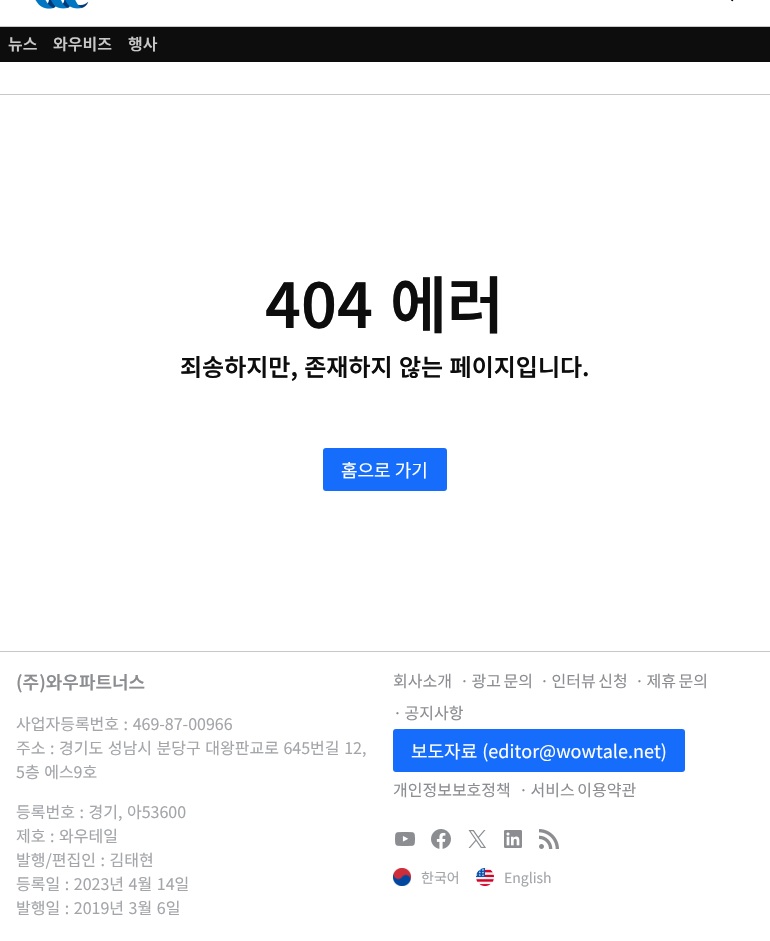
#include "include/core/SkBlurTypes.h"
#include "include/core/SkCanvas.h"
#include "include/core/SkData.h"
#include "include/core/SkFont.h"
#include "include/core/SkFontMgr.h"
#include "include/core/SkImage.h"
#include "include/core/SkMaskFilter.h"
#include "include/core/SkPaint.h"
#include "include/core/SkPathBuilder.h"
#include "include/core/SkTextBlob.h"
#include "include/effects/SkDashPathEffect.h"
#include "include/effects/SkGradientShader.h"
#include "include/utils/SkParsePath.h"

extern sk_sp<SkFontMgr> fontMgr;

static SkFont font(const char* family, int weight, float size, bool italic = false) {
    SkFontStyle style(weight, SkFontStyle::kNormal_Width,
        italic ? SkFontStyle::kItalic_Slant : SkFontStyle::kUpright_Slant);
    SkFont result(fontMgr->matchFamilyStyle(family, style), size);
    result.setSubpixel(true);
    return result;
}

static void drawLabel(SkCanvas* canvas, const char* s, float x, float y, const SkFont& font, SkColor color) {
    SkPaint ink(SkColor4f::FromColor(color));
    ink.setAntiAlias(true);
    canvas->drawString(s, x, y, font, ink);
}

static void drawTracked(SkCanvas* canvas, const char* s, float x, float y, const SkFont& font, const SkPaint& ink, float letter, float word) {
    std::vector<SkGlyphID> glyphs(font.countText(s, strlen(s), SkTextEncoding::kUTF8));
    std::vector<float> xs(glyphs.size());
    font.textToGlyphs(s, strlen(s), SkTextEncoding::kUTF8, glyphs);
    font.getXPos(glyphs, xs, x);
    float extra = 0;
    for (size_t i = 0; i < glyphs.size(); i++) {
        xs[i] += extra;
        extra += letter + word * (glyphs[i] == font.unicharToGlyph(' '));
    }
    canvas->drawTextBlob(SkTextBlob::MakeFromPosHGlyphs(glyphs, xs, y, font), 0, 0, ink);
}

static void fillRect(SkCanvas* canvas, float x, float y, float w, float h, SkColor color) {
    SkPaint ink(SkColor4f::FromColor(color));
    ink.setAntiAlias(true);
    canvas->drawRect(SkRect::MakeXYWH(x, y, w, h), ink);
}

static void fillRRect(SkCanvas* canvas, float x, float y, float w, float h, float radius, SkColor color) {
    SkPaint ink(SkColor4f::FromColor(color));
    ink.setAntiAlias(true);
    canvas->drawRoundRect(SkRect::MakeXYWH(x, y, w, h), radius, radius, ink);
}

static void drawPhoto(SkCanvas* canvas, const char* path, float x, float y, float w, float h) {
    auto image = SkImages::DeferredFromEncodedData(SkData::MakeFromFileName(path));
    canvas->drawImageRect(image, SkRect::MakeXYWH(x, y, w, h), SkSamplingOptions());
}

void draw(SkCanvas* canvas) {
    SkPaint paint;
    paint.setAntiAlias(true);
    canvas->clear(0xFFFFFFFF);
    fillRect(canvas, 0, 26, 770, 1, 0xFFC8C8C8);
    drawPhoto(canvas, "assets/img1.png", 35, 0, 54, 9);
    drawPhoto(canvas, "assets/img2.png", 730, 0, 4, 2);
    fillRect(canvas, 0, 27, 770, 35, 0xFF0D0D0D);
    SkFont font1 = font("Noto Sans KR", 600, 16);
    drawLabel(canvas, "뉴스", 8, 50, font1, 0xFFC8C8C8);
    drawLabel(canvas, "와우비즈", 53, 50, font1, 0xFFC8C8C8);
    drawLabel(canvas, "행사", 128, 50, font1, 0xFFC8C8C8);
    fillRect(canvas, 0, 94, 770, 1, 0xFFC8C8C8);
    SkFont font2 = font("Noto Sans KR", 600, 62);
    paint.setColor(0xFF0D0D0D);
    drawTracked(canvas, "404 에러", 265, 328, font2, paint, 0, 3);
    SkFont font3 = font("Noto Sans KR", 600, 24);
    drawTracked(canvas, "죄송하지만, 존재하지 않는 페이지입니다.", 180, 376, font3, paint, 0, 1);
    fillRRect(canvas, 323, 448, 124, 43, 3, 0xFF166DFC);
    SkFont font4 = font("Noto Sans KR", 400, 18);
    drawLabel(canvas, "홈으로 가기", 341, 477, font4, 0xFFFFFFFF);
    fillRect(canvas, 0, 651, 770, 1, 0xFFC8C8C8);
    SkFont font5 = font("Noto Sans KR", 600, 18);
    drawLabel(canvas, "(주)와우파트너스", 16, 689, font5, 0xFF8B8D91);
    SkFont font6 = font("Noto Sans KR", 400, 16);
    paint.setColor(0xFFA3A5A9);
    drawTracked(canvas, "사업자등록번호 : 469-87-00966", 16, 730, font6, paint, 0, 1);
    drawTracked(canvas, "주소 : 경기도 성남시 분당구 대왕판교로 645번길 12,", 16, 754, font6, paint, 0, 1);
    drawTracked(canvas, "5층 에스9호", 16, 778, font6, paint, 0, 1);
    drawTracked(canvas, "등록번호 : 경기, 아53600", 16, 818, font6, paint, 0, 1);
    drawTracked(canvas, "제호 : 와우테일", 16, 842, font6, paint, 0, 1);
    drawTracked(canvas, "발행/편집인 : 김태현", 16, 866, font6, paint, 0, 1);
    drawTracked(canvas, "등록일 : 2023년 4월 14일", 16, 890, font6, paint, 0, 1);
    drawTracked(canvas, "발행일 : 2019년 3월 6일", 16, 914, font6, paint, 0, 1);
    drawLabel(canvas, "회사소개", 393, 687, font6, 0xFF8B8D91);
    paint.setColor(0xFF8B8D91);
    drawTracked(canvas, "· 광고 문의", 460, 687, font6, paint, 0, -1);
    drawTracked(canvas, "· 인터뷰 신청", 540, 687, font6, paint, 0, -1);
    drawTracked(canvas, "· 제휴 문의", 635, 687, font6, paint, 0, -1);
    drawTracked(canvas, "· 공지사항", 393, 719, font6, paint, 0, -1);
    fillRRect(canvas, 393, 729, 292, 43, 3, 0xFF166DFC);
    paint.setColor(0xFFFFFFFF);
    drawTracked(canvas, "보도자료 (editor@wowtale.net)", 411, 758, font4, paint, 0, 1);
    drawLabel(canvas, "개인정보보호정책", 393, 796, font6, 0xFF8B8D91);
    paint.setColor(0xFF8B8D91);
    drawTracked(canvas, "· 서비스 이용약관", 519, 796, font6, paint, 0, -1);
    drawPhoto(canvas, "assets/img3.png", 395, 832, 20, 14);
    drawPhoto(canvas, "assets/img4.png", 431, 829, 20, 20);
    drawPhoto(canvas, "assets/img5.png", 468, 830, 18, 18);
    drawPhoto(canvas, "assets/img6.png", 504, 830, 18, 18);
    drawPhoto(canvas, "assets/img7.png", 539, 829, 20, 20);
    drawPhoto(canvas, "assets/img8.png", 393, 868, 18, 18);
    SkFont font7 = font("Noto Sans KR", 400, 14);
    drawLabel(canvas, "한국어", 421, 883, font7, 0xFFA3A5A9);
    drawPhoto(canvas, "assets/img9.png", 476, 868, 18, 18);
    drawLabel(canvas, "English", 504, 883, font7, 0xFFA3A5A9);
}
